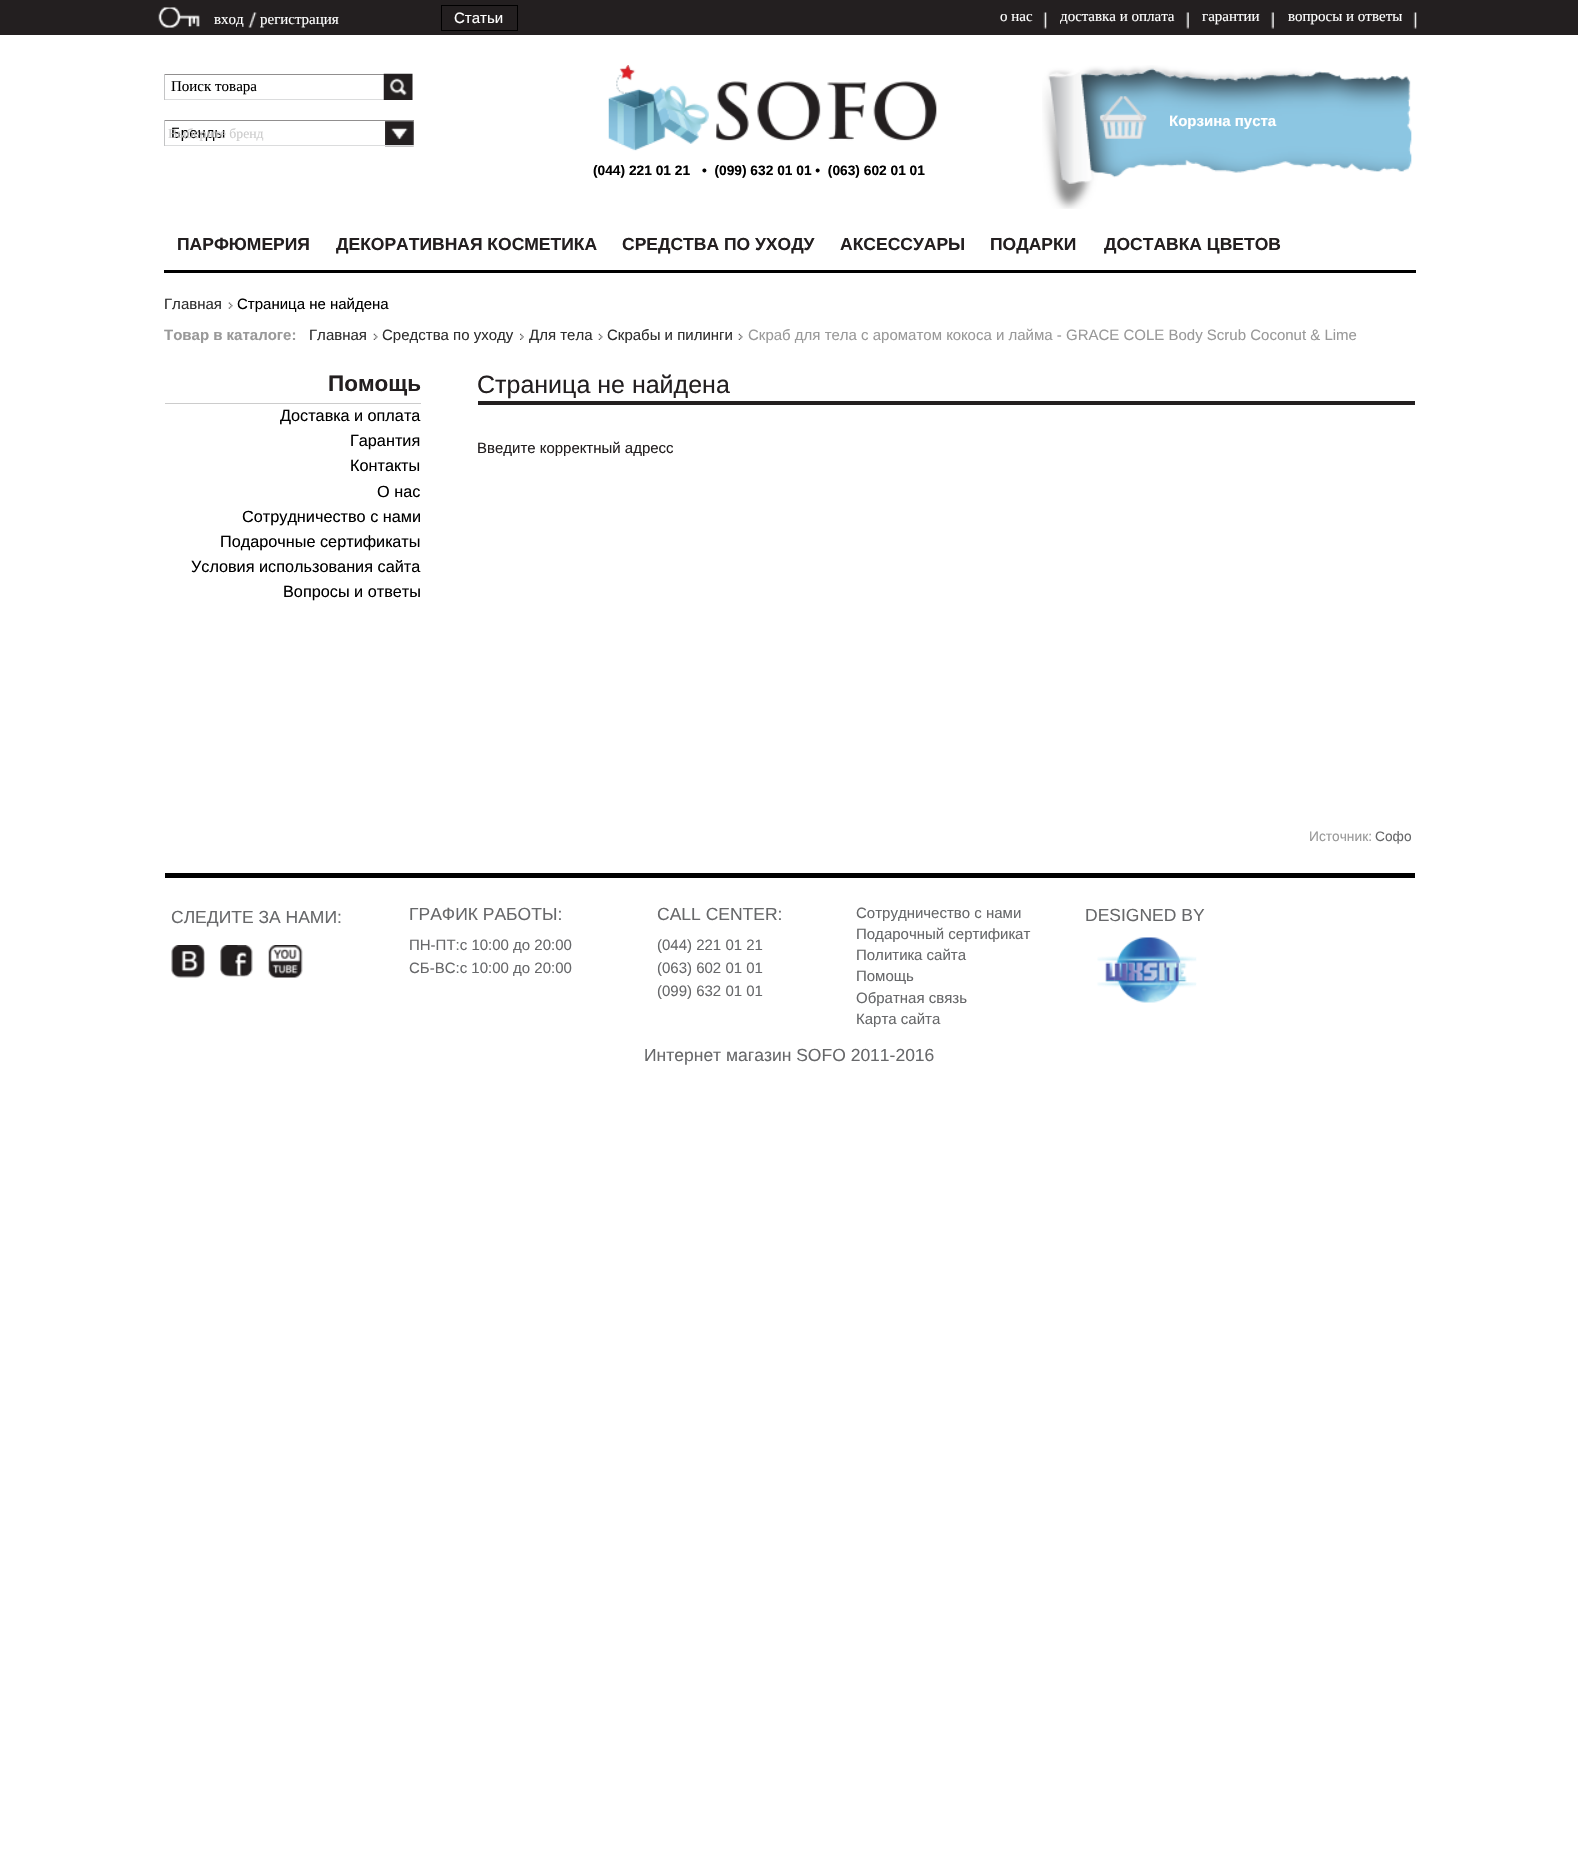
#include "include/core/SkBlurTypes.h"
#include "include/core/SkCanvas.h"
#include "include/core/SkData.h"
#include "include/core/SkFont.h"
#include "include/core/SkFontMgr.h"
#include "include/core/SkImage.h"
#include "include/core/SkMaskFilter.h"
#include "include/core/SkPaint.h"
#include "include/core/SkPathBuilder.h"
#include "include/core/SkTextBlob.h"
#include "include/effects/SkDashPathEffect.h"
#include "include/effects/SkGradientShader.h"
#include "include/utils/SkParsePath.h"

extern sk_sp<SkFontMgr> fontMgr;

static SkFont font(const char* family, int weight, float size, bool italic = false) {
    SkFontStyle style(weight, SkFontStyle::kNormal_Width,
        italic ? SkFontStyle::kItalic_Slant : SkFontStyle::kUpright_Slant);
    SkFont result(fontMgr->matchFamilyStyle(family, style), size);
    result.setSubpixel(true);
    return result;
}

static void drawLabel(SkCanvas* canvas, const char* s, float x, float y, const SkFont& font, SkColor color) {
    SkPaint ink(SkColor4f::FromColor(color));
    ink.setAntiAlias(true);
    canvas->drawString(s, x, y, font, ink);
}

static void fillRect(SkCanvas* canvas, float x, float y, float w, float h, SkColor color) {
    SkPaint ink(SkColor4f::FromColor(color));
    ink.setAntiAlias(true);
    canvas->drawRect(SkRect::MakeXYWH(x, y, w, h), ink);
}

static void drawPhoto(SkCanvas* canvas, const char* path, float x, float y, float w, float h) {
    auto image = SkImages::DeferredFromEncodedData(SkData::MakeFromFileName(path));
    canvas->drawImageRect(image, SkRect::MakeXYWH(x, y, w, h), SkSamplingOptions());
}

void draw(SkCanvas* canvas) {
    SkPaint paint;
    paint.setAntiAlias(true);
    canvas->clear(0xFFFFFFFF);
    fillRect(canvas, 0, 0, 1578, 35, 0xFF231F20);
    drawPhoto(canvas, "assets/img1.png", 248, 12, 9, 16);
    drawPhoto(canvas, "assets/img2.png", 158, 7, 42, 21);
    SkFont font1 = font("Liberation Serif", 400, 15);
    drawLabel(canvas, "вход", 214, 24, font1, 0xFFFFFFFF);
    drawLabel(canvas, "регистрация", 260, 24, font1, 0xFFFFFFFF);
    fillRect(canvas, 164, 74, 220, 1, 0xFF918F8F);
    fillRect(canvas, 164, 99, 220, 1, 0xFFDBDCDD);
    fillRect(canvas, 164, 74, 1, 26, 0xFFC3C4C5);
    drawLabel(canvas, "Поиск товара", 171, 91, font1, 0xFF000000);
    drawPhoto(canvas, "assets/img3.png", 383, 73, 30, 27);
    drawPhoto(canvas, "assets/img4.png", 385, 121, 29, 26);
    fillRect(canvas, 164, 120, 250, 1, 0xFF918F8F);
    fillRect(canvas, 164, 145, 250, 1, 0xFFDBDCDD);
    fillRect(canvas, 164, 120, 1, 26, 0xFFC3C4C5);
    SkFont font2 = font("Liberation Sans", 400, 15);
    drawLabel(canvas, "Бренды", 171, 138, font2, 0xFF000000);
    SkFont font3 = font("Liberation Serif", 400, 13.75f);
    drawLabel(canvas, "Выберите бренд", 168, 138, font3, 0xFFCCCCCC);
    paint.setStroke(true);
    paint.setStrokeWidth(1);
    paint.setColor(0xFF000000);
    canvas->drawRect(SkRect::MakeXYWH(441.5f, 5.5f, 76, 25), paint);
    drawLabel(canvas, "Статьи", 454, 23, font2, 0xFFFFFFFF);
    drawPhoto(canvas, "assets/img5.png", 1043, 12, 4, 17);
    drawLabel(canvas, "о нас", 1000, 21, font1, 0xFFFFFFFF);
    drawPhoto(canvas, "assets/img6.png", 1186, 12, 3, 17);
    drawLabel(canvas, "доставка и оплата", 1060, 21, font1, 0xFFFFFFFF);
    drawPhoto(canvas, "assets/img6.png", 1271, 12, 3, 17);
    drawLabel(canvas, "гарантии", 1202, 21, font1, 0xFFFFFFFF);
    drawPhoto(canvas, "assets/img5.png", 1413, 12, 4, 17);
    drawLabel(canvas, "вопросы и ответы", 1288, 21, font1, 0xFFFFFFFF);
    drawPhoto(canvas, "assets/img7.png", 608, 65, 329, 86);
    drawPhoto(canvas, "assets/img8.png", 1042, 65, 370, 144);
    SkFont font4 = font("Liberation Sans", 700, 15);
    drawLabel(canvas, "Корзина пуста", 1169, 126, font4, 0xFFFFFFFF);
    SkFont font5 = font("Liberation Sans", 700, 13.75f);
    drawLabel(canvas, "(044) 221 01 21", 593, 175, font5, 0xFF000000);
    drawLabel(canvas, "•  (099) 632 01 01 •  (063) 602 01 01", 702, 175, font5, 0xFF000000);
    SkFont font6 = font("Liberation Sans", 700, 17.5f);
    drawLabel(canvas, "ПАРФЮМЕРИЯ", 177, 250, font6, 0xFF231F20);
    drawLabel(canvas, "ДЕКОРАТИВНАЯ КОСМЕТИКА", 336, 250, font6, 0xFF231F20);
    drawLabel(canvas, "СРЕДСТВА ПО УХОДУ", 622, 250, font6, 0xFF231F20);
    drawLabel(canvas, "АКСЕССУАРЫ", 840, 250, font6, 0xFF231F20);
    drawLabel(canvas, "ПОДАРКИ", 990, 250, font6, 0xFF231F20);
    drawLabel(canvas, "ДОСТАВКА ЦВЕТОВ", 1104, 250, font6, 0xFF231F20);
    fillRect(canvas, 164, 270, 1252, 3, 0xFF000000);
    drawLabel(canvas, "Главная", 164, 309, font2, 0xFF2F2F2F);
    drawPhoto(canvas, "assets/img9.png", 228, 302, 5, 7);
    drawLabel(canvas, "Страница не найдена", 237, 309, font2, 0xFF000000);
    drawLabel(canvas, "Товар в каталоге:", 164, 340, font4, 0xFF999999);
    drawLabel(canvas, "Главная", 309, 340, font2, 0xFF2F2F2F);
    drawPhoto(canvas, "assets/img10.png", 373, 333, 5, 7);
    drawLabel(canvas, "Средства по уходу", 382, 340, font2, 0xFF2F2F2F);
    drawPhoto(canvas, "assets/img11.png", 520, 333, 4, 7);
    drawLabel(canvas, "Для тела", 529, 340, font2, 0xFF2F2F2F);
    drawPhoto(canvas, "assets/img10.png", 598, 333, 5, 7);
    drawLabel(canvas, "Скрабы и пилинги", 607, 340, font2, 0xFF2F2F2F);
    drawPhoto(canvas, "assets/img10.png", 738, 333, 5, 7);
    drawLabel(canvas, "Скраб для тела с ароматом кокоса и лайма - GRACE COLE Body Scrub Coconut & Lime", 748, 340, font2, 0xFF999999);
    fillRect(canvas, 165, 403, 256, 1, 0xFFCCCCCC);
    SkFont font7 = font("Liberation Sans", 700, 22.5f);
    drawLabel(canvas, "Помощь", 328, 391, font7, 0xFF231F20);
    SkFont font8 = font("Liberation Sans", 400, 16.25f);
    drawLabel(canvas, "Доставка и оплата", 280, 421, font8, 0xFF000000);
    drawLabel(canvas, "Гарантия", 350, 446, font8, 0xFF000000);
    drawLabel(canvas, "Контакты", 350, 471, font8, 0xFF000000);
    drawLabel(canvas, "О нас", 377, 497, font8, 0xFF000000);
    drawLabel(canvas, "Сотрудничество с нами", 242, 522, font8, 0xFF000000);
    drawLabel(canvas, "Подарочные сертификаты", 220, 547, font8, 0xFF000000);
    drawLabel(canvas, "Условия использования сайта", 191, 572, font8, 0xFF000000);
    drawLabel(canvas, "Вопросы и ответы", 283, 597, font8, 0xFF000000);
    fillRect(canvas, 478, 401, 937, 4, 0xFF231F20);
    SkFont font9 = font("Liberation Sans", 400, 25);
    drawLabel(canvas, "Страница не найдена", 477, 393, font9, 0xFF231F20);
    drawLabel(canvas, "Введите корректный адресс", 477, 453, font2, 0xFF231F20);
    SkFont font10 = font("Liberation Sans", 400, 13.75f);
    drawLabel(canvas, "Источник:", 1309, 841, font10, 0xFF999999);
    drawLabel(canvas, "Софо", 1375, 841, font10, 0xFF67686A);
    fillRect(canvas, 165, 873, 1250, 5, 0xFF000000);
    SkFont font11 = font("Liberation Sans", 400, 17.5f);
    drawLabel(canvas, "СЛЕДИТЕ ЗА НАМИ:", 171, 923, font11, 0xFF67686A);
    drawPhoto(canvas, "assets/img12.png", 171, 945, 34, 33);
    drawPhoto(canvas, "assets/img13.png", 220, 945, 33, 32);
    drawPhoto(canvas, "assets/img14.png", 268, 945, 35, 33);
    drawLabel(canvas, "ГРАФИК РАБОТЫ:", 409, 920, font11, 0xFF67686A);
    drawLabel(canvas, "ПН-ПТ:с 10:00 до 20:00", 409, 950, font2, 0xFF67686A);
    drawLabel(canvas, "СБ-ВС:с 10:00 до 20:00", 409, 973, font2, 0xFF67686A);
    drawLabel(canvas, "CALL CENTER:", 657, 920, font11, 0xFF67686A);
    drawLabel(canvas, "(044) 221 01 21", 657, 950, font2, 0xFF67686A);
    drawLabel(canvas, "(063) 602 01 01", 657, 973, font2, 0xFF67686A);
    drawLabel(canvas, "(099) 632 01 01", 657, 996, font2, 0xFF67686A);
    drawLabel(canvas, "Сотрудничество с нами", 856, 918, font2, 0xFF67686A);
    drawLabel(canvas, "Подарочный сертификат", 856, 939, font2, 0xFF67686A);
    drawLabel(canvas, "Политика сайта", 856, 960, font2, 0xFF67686A);
    drawLabel(canvas, "Помощь", 856, 981, font2, 0xFF67686A);
    drawLabel(canvas, "Обратная связь", 856, 1003, font2, 0xFF67686A);
    drawLabel(canvas, "Карта сайта", 856, 1024, font2, 0xFF67686A);
    drawLabel(canvas, "DESIGNED BY", 1085, 921, font11, 0xFF67686A);
    drawPhoto(canvas, "assets/img15.png", 1097, 937, 100, 66);
    drawLabel(canvas, "Интернет магазин SOFO 2011-2016", 644, 1061, font11, 0xFF67686A);
}
